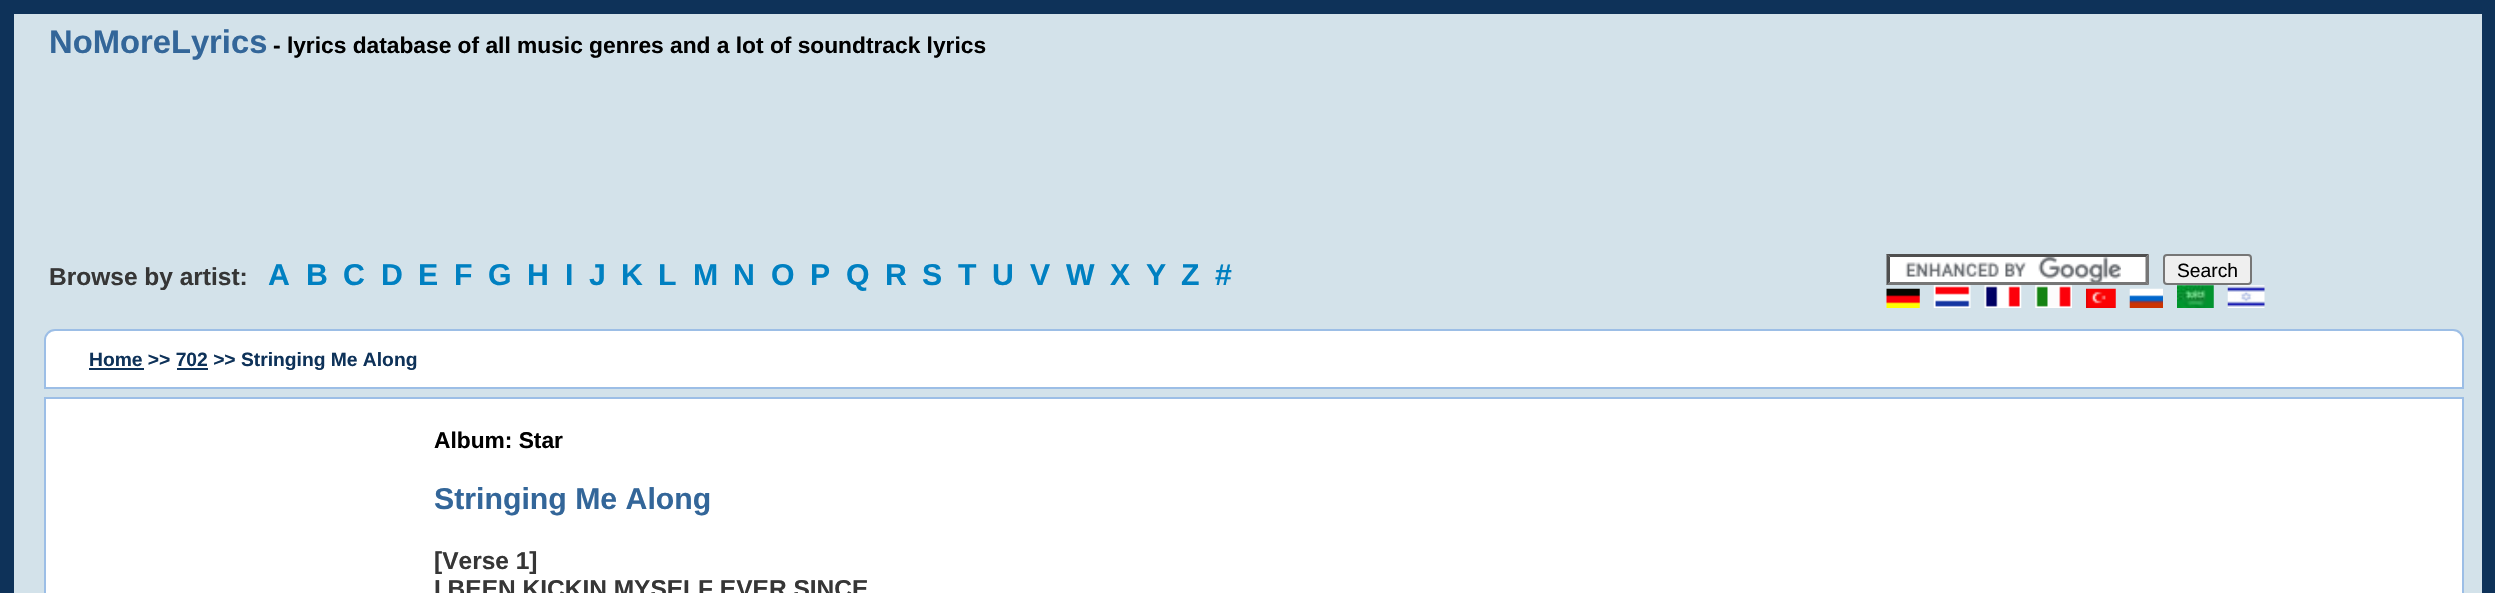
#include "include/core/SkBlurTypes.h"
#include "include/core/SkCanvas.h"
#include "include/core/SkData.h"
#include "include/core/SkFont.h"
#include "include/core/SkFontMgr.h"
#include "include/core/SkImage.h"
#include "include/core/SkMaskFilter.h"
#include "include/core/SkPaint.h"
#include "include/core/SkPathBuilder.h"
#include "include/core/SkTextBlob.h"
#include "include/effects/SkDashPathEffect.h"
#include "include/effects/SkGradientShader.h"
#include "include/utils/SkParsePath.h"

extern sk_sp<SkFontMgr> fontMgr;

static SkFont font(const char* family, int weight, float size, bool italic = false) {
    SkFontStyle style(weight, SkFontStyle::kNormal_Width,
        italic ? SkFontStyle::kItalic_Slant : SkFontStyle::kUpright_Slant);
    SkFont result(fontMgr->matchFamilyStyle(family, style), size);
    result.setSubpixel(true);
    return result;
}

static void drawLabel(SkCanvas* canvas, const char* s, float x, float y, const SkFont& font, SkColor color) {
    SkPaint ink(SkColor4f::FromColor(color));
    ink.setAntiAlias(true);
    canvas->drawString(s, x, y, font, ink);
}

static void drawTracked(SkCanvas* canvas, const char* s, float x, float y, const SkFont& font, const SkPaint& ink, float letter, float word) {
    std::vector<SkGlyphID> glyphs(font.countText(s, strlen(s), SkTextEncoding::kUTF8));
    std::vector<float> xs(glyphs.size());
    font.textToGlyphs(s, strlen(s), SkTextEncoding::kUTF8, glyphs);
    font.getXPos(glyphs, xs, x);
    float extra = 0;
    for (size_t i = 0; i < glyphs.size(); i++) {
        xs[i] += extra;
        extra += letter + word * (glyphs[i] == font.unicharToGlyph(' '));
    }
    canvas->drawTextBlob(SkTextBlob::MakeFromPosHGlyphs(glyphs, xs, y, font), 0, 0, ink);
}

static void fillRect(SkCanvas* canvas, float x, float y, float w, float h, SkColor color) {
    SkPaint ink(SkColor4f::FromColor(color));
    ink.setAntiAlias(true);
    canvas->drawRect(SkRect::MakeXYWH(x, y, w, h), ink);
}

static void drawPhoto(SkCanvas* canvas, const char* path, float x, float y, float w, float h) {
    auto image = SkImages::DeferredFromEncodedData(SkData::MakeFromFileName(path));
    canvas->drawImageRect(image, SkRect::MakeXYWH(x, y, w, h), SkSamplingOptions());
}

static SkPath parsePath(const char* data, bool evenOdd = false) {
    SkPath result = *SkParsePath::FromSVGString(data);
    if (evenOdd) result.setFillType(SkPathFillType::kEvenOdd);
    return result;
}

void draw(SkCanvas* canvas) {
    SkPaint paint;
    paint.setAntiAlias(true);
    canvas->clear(0xFF0E3259);
    fillRect(canvas, 14, 14, 2468, 579, 0xFFD3E2EA);
    SkFont font1 = font("Liberation Sans", 700, 32.75f);
    drawLabel(canvas, "NoMoreLyrics", 49, 53, font1, 0xFF336699);
    SkFont font2 = font("Liberation Sans", 700, 22.75f);
    drawLabel(canvas, "- lyrics database of all music genres and a lot of soundtrack lyrics", 273, 53, font2, 0xFF000000);
    SkFont font3 = font("Liberation Sans", 700, 24.5f);
    drawLabel(canvas, "Browse by artist:", 49, 285, font3, 0xFF363636);
    SkFont font4 = font("Liberation Sans", 700, 30.25f);
    paint.setColor(0xFF0080C1);
    drawTracked(canvas, "A", 268, 285, font4, paint, 9, 0);
    drawTracked(canvas, "B", 306, 285, font4, paint, 9, 0);
    drawTracked(canvas, "C", 343, 285, font4, paint, 9, 0);
    drawTracked(canvas, "D", 381, 285, font4, paint, 9, 0);
    drawTracked(canvas, "E", 418, 285, font4, paint, 9, 0);
    drawTracked(canvas, "F", 454, 285, font4, paint, 9, 0);
    drawTracked(canvas, "G", 488, 285, font4, paint, 9, 0);
    drawTracked(canvas, "H", 527, 285, font4, paint, 9, 0);
    drawTracked(canvas, "I", 565, 285, font4, paint, 9, 0);
    drawTracked(canvas, "J", 589, 285, font4, paint, 9, 0);
    drawTracked(canvas, "K", 621, 285, font4, paint, 9, 0);
    drawTracked(canvas, "L", 658, 285, font4, paint, 9, 0);
    drawTracked(canvas, "M", 693, 285, font4, paint, 9, 0);
    drawTracked(canvas, "N", 733, 285, font4, paint, 9, 0);
    drawTracked(canvas, "O", 771, 285, font4, paint, 9, 0);
    drawTracked(canvas, "P", 810, 285, font4, paint, 9, 0);
    drawTracked(canvas, "Q", 846, 285, font4, paint, 9, 0);
    drawTracked(canvas, "R", 885, 285, font4, paint, 9, 0);
    drawTracked(canvas, "S", 922, 285, font4, paint, 9, 0);
    drawTracked(canvas, "T", 958, 285, font4, paint, 9, 0);
    drawTracked(canvas, "U", 992, 285, font4, paint, 9, 0);
    drawTracked(canvas, "V", 1030, 285, font4, paint, 9, 0);
    drawTracked(canvas, "W", 1066, 285, font4, paint, 9, 0);
    drawTracked(canvas, "X", 1110, 285, font4, paint, 9, 0);
    drawTracked(canvas, "Y", 1146, 285, font4, paint, 9, 0);
    drawTracked(canvas, "Z", 1181, 285, font4, paint, 9, 0);
    drawTracked(canvas, "#", 1215, 285, font4, paint, 9, 0);
    fillRect(canvas, 1887, 254, 262, 31, 0xFFFFFFFF);
    drawPhoto(canvas, "assets/img1.png", 1905, 257, 216, 25);
    paint.setColor(0xFF4F4F4F);
    canvas->drawPath(parsePath("M1886 254H2149L2146 257H1890Z"), paint);
    paint.setColor(0xFF767676);
    canvas->drawPath(parsePath("M2149 254V285L2145.5 282V257Z"), paint);
    canvas->drawPath(parsePath("M2149 285H1886L1890 282H2146Z"), paint);
    paint.setColor(0xFF4F4F4F);
    canvas->drawPath(parsePath("M1886.5 285V254L1890 257V282Z"), paint);
    paint.setColor(0xFFEFEFEF);
    canvas->drawRoundRect(SkRect::MakeXYWH(2164, 255, 87, 29), 3, 3, paint);
    paint.setStroke(true);
    paint.setStrokeWidth(2);
    paint.setColor(0xFF767676);
    canvas->drawRoundRect(SkRect::MakeXYWH(2164, 255, 87, 29), 3, 3, paint);
    SkFont font5 = font("Liberation Sans", 400, 19.25f);
    drawLabel(canvas, "Search", 2177, 277, font5, 0xFF000000);
    drawPhoto(canvas, "assets/img2.png", 1886, 288, 34, 20);
    drawPhoto(canvas, "assets/img3.png", 1933, 285, 38, 23);
    drawPhoto(canvas, "assets/img4.png", 1984, 285, 38, 23);
    drawPhoto(canvas, "assets/img5.png", 2035, 285, 37, 23);
    drawPhoto(canvas, "assets/img6.png", 2086, 288, 30, 20);
    drawPhoto(canvas, "assets/img7.png", 2129, 288, 34, 20);
    drawPhoto(canvas, "assets/img8.png", 2177, 285, 37, 23);
    drawPhoto(canvas, "assets/img9.png", 2227, 285, 38, 23);
    paint.setStroke(false);
    paint.setColor(0xFFFFFFFF);
    canvas->drawPath(parsePath("M55 330H2453C2458.5 330 2463 334.5 2463 340V388H45V340C45 334.5 49.5 330 55 330Z"), paint);
    paint.setStroke(true);
    paint.setColor(0xFF9CBEE6);
    canvas->drawPath(parsePath("M55 330H2453C2458.5 330 2463 334.5 2463 340V388H45V340C45 334.5 49.5 330 55 330Z"), paint);
    fillRect(canvas, 89, 368, 55, 2, 0xFF0E3259);
    SkFont font6 = font("Liberation Sans", 700, 19.25f);
    drawLabel(canvas, "Home >> 702 >> Stringing Me Along", 89, 366, font6, 0xFF0E3259);
    fillRect(canvas, 177, 368, 31, 2, 0xFF0E3259);
    paint.setStroke(false);
    paint.setColor(0xFFFFFFFF);
    canvas->drawRect(SkRect::MakeXYWH(45, 398, 2418, 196), paint);
    paint.setStroke(true);
    paint.setColor(0xFF9CBEE6);
    canvas->drawRect(SkRect::MakeXYWH(45, 398, 2418, 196), paint);
    drawLabel(canvas, "Album: Star", 434, 448, font2, 0xFF000000);
    drawLabel(canvas, "Stringing Me Along", 434, 509, font4, 0xFF336699);
    drawLabel(canvas, "[Verse 1]", 434, 569, font3, 0xFF363636);
    drawLabel(canvas, "I BEEN KICKIN MYSELF EVER SINCE", 434, 597, font3, 0xFF363636);
}
